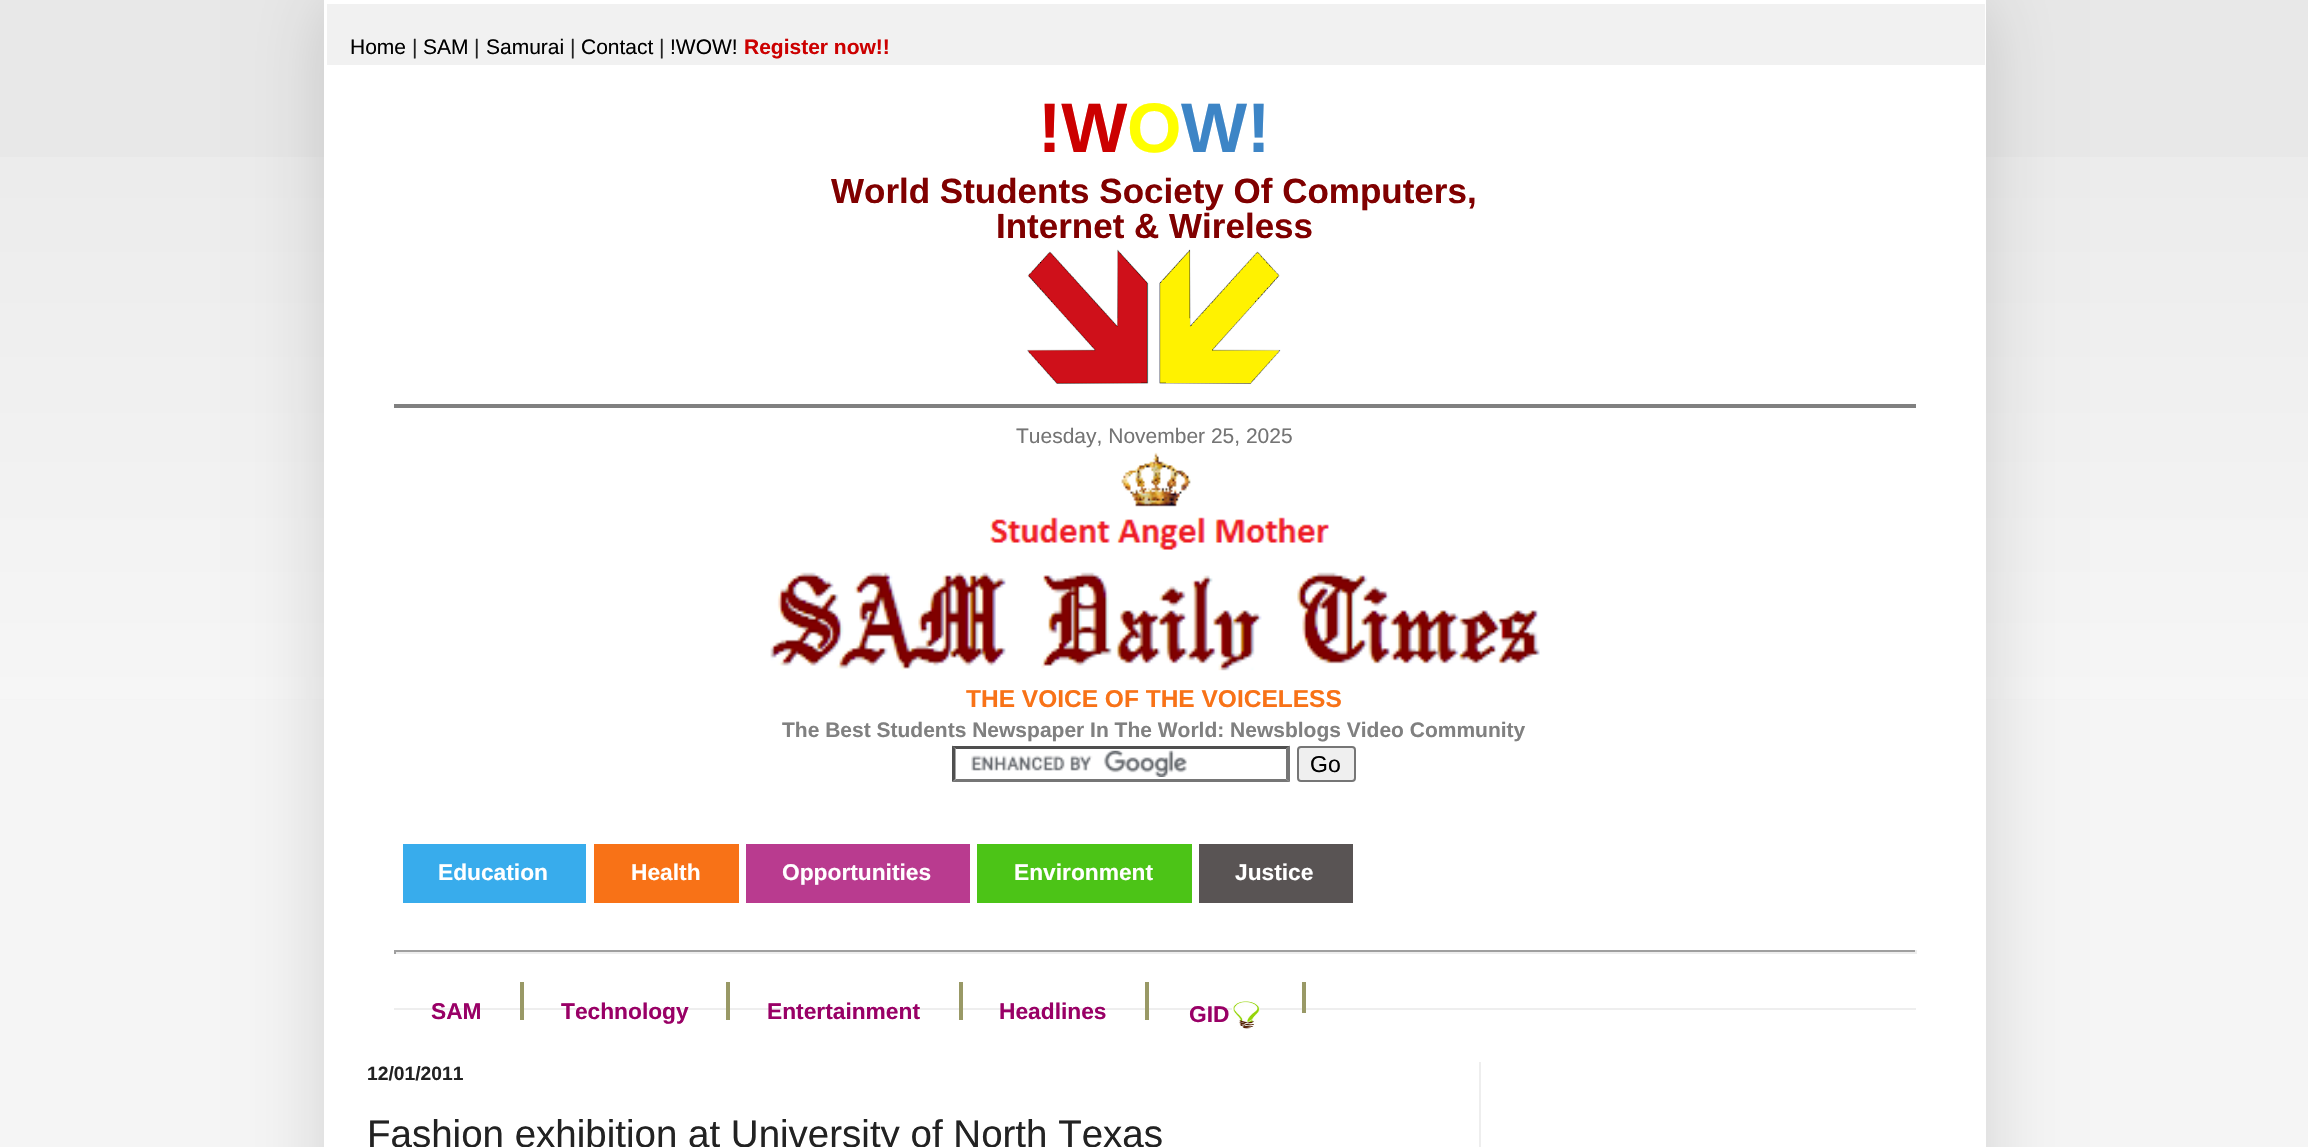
#include "include/core/SkBlurTypes.h"
#include "include/core/SkCanvas.h"
#include "include/core/SkData.h"
#include "include/core/SkFont.h"
#include "include/core/SkFontMgr.h"
#include "include/core/SkImage.h"
#include "include/core/SkMaskFilter.h"
#include "include/core/SkPaint.h"
#include "include/core/SkPathBuilder.h"
#include "include/core/SkTextBlob.h"
#include "include/effects/SkDashPathEffect.h"
#include "include/effects/SkGradientShader.h"
#include "include/utils/SkParsePath.h"

extern sk_sp<SkFontMgr> fontMgr;

static SkFont font(const char* family, int weight, float size, bool italic = false) {
    SkFontStyle style(weight, SkFontStyle::kNormal_Width,
        italic ? SkFontStyle::kItalic_Slant : SkFontStyle::kUpright_Slant);
    SkFont result(fontMgr->matchFamilyStyle(family, style), size);
    result.setSubpixel(true);
    return result;
}

static void drawLabel(SkCanvas* canvas, const char* s, float x, float y, const SkFont& font, SkColor color) {
    SkPaint ink(SkColor4f::FromColor(color));
    ink.setAntiAlias(true);
    canvas->drawString(s, x, y, font, ink);
}

static void fillRect(SkCanvas* canvas, float x, float y, float w, float h, SkColor color) {
    SkPaint ink(SkColor4f::FromColor(color));
    ink.setAntiAlias(true);
    canvas->drawRect(SkRect::MakeXYWH(x, y, w, h), ink);
}

static void drawPhoto(SkCanvas* canvas, const char* path, float x, float y, float w, float h) {
    auto image = SkImages::DeferredFromEncodedData(SkData::MakeFromFileName(path));
    canvas->drawImageRect(image, SkRect::MakeXYWH(x, y, w, h), SkSamplingOptions());
}

static SkPath parsePath(const char* data, bool evenOdd = false) {
    SkPath result = *SkParsePath::FromSVGString(data);
    if (evenOdd) result.setFillType(SkPathFillType::kEvenOdd);
    return result;
}

void draw(SkCanvas* canvas) {
    SkPaint paint;
    paint.setAntiAlias(true);
    canvas->clear(0xFFF5F5F5);
    fillRect(canvas, 0, 0, 2308, 700, 0xFFE8E8E8);
    drawPhoto(canvas, "assets/img1.png", 0, 157, 2308, 543);
    paint.setColor(0x26000000);
    paint.setMaskFilter(SkMaskFilter::MakeBlur(kNormal_SkBlurStyle, 35));
    canvas->drawRect(SkRect::MakeXYWH(324, 0, 1662, 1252), paint);
    paint.setMaskFilter(nullptr);
    fillRect(canvas, 324, 0, 1662, 1147, 0xFFFFFFFF);
    fillRect(canvas, 327, 4, 1658, 61, 0xFFF1F1F1);
    SkFont font1 = font("Liberation Sans", 400, 21);
    drawLabel(canvas, "Home", 350, 54, font1, 0xFF000000);
    drawLabel(canvas, "|", 412, 54, font1, 0xFF222222);
    drawLabel(canvas, "SAM", 423, 54, font1, 0xFF000000);
    drawLabel(canvas, "|", 474, 54, font1, 0xFF222222);
    drawLabel(canvas, "Samurai", 486, 54, font1, 0xFF000000);
    drawLabel(canvas, "|", 570, 54, font1, 0xFF222222);
    drawLabel(canvas, "Contact", 581, 54, font1, 0xFF000000);
    drawLabel(canvas, "|", 659, 54, font1, 0xFF222222);
    drawLabel(canvas, "!WOW!", 670, 54, font1, 0xFF000000);
    SkFont font2 = font("Liberation Sans", 700, 21);
    drawLabel(canvas, "Register now!!", 744, 54, font2, 0xFFCC0000);
    SkFont font3 = font("Liberation Sans", 700, 70);
    drawLabel(canvas, "!W", 1038, 152, font3, 0xFFCC0000);
    drawLabel(canvas, "O", 1127, 152, font3, 0xFFFFFF00);
    drawLabel(canvas, "W!", 1181, 152, font3, 0xFF3D85C6);
    SkFont font4 = font("Liberation Sans", 700, 35);
    drawLabel(canvas, "World Students Society Of Computers,", 831, 203, font4, 0xFF800000);
    drawLabel(canvas, "Internet & Wireless", 996, 238, font4, 0xFF800000);
    drawPhoto(canvas, "assets/img2.png", 1027, 249, 254, 135);
    fillRect(canvas, 394, 404, 1522, 4, 0xFF808080);
    drawLabel(canvas, "Tuesday, November 25, 2025", 1016, 443, font1, 0xFF747474);
    drawPhoto(canvas, "assets/img3.png", 990, 452, 340, 98);
    drawPhoto(canvas, "assets/img4.png", 770, 572, 770, 99);
    SkFont font5 = font("Liberation Sans", 700, 24.5f);
    drawLabel(canvas, "THE VOICE OF THE VOICELESS", 966, 707, font5, 0xFFF87217);
    drawLabel(canvas, "The Best Students Newspaper In The World: Newsblogs Video Community", 782, 737, font2, 0xFF808080);
    drawPhoto(canvas, "assets/img5.png", 971, 750, 216, 27);
    paint.setColor(0xFF4F4F4F);
    canvas->drawPath(parsePath("M952 746H1290L1286 749H956Z"), paint);
    paint.setColor(0xFF767676);
    canvas->drawPath(parsePath("M1290 745.5V782L1286 779V749Z"), paint);
    canvas->drawPath(parsePath("M1290 782H952L956 779H1286Z"), paint);
    paint.setColor(0xFF4F4F4F);
    canvas->drawPath(parsePath("M952 782V745.5L955.5 749V779Z"), paint);
    paint.setColor(0xFFEFEFEF);
    canvas->drawRoundRect(SkRect::MakeXYWH(1298, 747, 57, 34), 3, 3, paint);
    paint.setStroke(true);
    paint.setStrokeWidth(2);
    paint.setColor(0xFF767676);
    canvas->drawRoundRect(SkRect::MakeXYWH(1298, 747, 57, 34), 3, 3, paint);
    SkFont font6 = font("Liberation Sans", 400, 23);
    drawLabel(canvas, "Go", 1310, 772, font6, 0xFF000000);
    fillRect(canvas, 403, 844, 183, 59, 0xFF38ACEC);
    SkFont font7 = font("Liberation Sans", 700, 22.75f);
    drawLabel(canvas, "Education", 438, 880, font7, 0xFFFFFFFF);
    fillRect(canvas, 594, 844, 145, 59, 0xFFF87217);
    drawLabel(canvas, "Health", 631, 880, font7, 0xFFFFFFFF);
    fillRect(canvas, 746, 844, 224, 59, 0xFFB93B8F);
    drawLabel(canvas, "Opportunities", 782, 880, font7, 0xFFFFFFFF);
    fillRect(canvas, 977, 844, 215, 59, 0xFF4CC417);
    drawLabel(canvas, "Environment", 1014, 880, font7, 0xFFFFFFFF);
    fillRect(canvas, 1199, 844, 154, 59, 0xFF595454);
    drawLabel(canvas, "Justice", 1235, 880, font7, 0xFFFFFFFF);
    fillRect(canvas, 394, 950, 1522, 2, 0xFF9F9F9F);
    fillRect(canvas, 1915, 950, 2, 4, 0xFFEEEEEE);
    fillRect(canvas, 394, 952, 1522, 2, 0xFFEEEEEE);
    fillRect(canvas, 394, 950, 2, 4, 0xFF9F9F9F);
    fillRect(canvas, 394, 1008, 1522, 2, 0xFFEEEEEE);
    fillRect(canvas, 520, 982, 4, 38, 0xFF999966);
    drawLabel(canvas, "SAM", 431, 1019, font7, 0xFF990066);
    fillRect(canvas, 726, 982, 4, 38, 0xFF999966);
    drawLabel(canvas, "Technology", 561, 1019, font7, 0xFF990066);
    fillRect(canvas, 959, 982, 4, 38, 0xFF999966);
    drawLabel(canvas, "Entertainment", 767, 1019, font7, 0xFF990066);
    fillRect(canvas, 1145, 982, 4, 38, 0xFF999966);
    drawLabel(canvas, "Headlines", 999, 1019, font7, 0xFF990066);
    fillRect(canvas, 1302, 982, 4, 31, 0xFF999966);
    drawLabel(canvas, "GID", 1189, 1022, font7, 0xFF990066);
    drawPhoto(canvas, "assets/img6.png", 1232, 1001, 28, 28);
    SkFont font8 = font("Liberation Sans", 700, 19.25f);
    drawLabel(canvas, "12/01/2011", 367, 1080, font8, 0xFF222222);
    SkFont font9 = font("Liberation Sans", 400, 38.5f);
    drawLabel(canvas, "Fashion exhibition at University of North Texas", 367, 1147, font9, 0xFF222222);
    fillRect(canvas, 1479, 1062, 2, 85, 0xFFEEEEEE);
}
